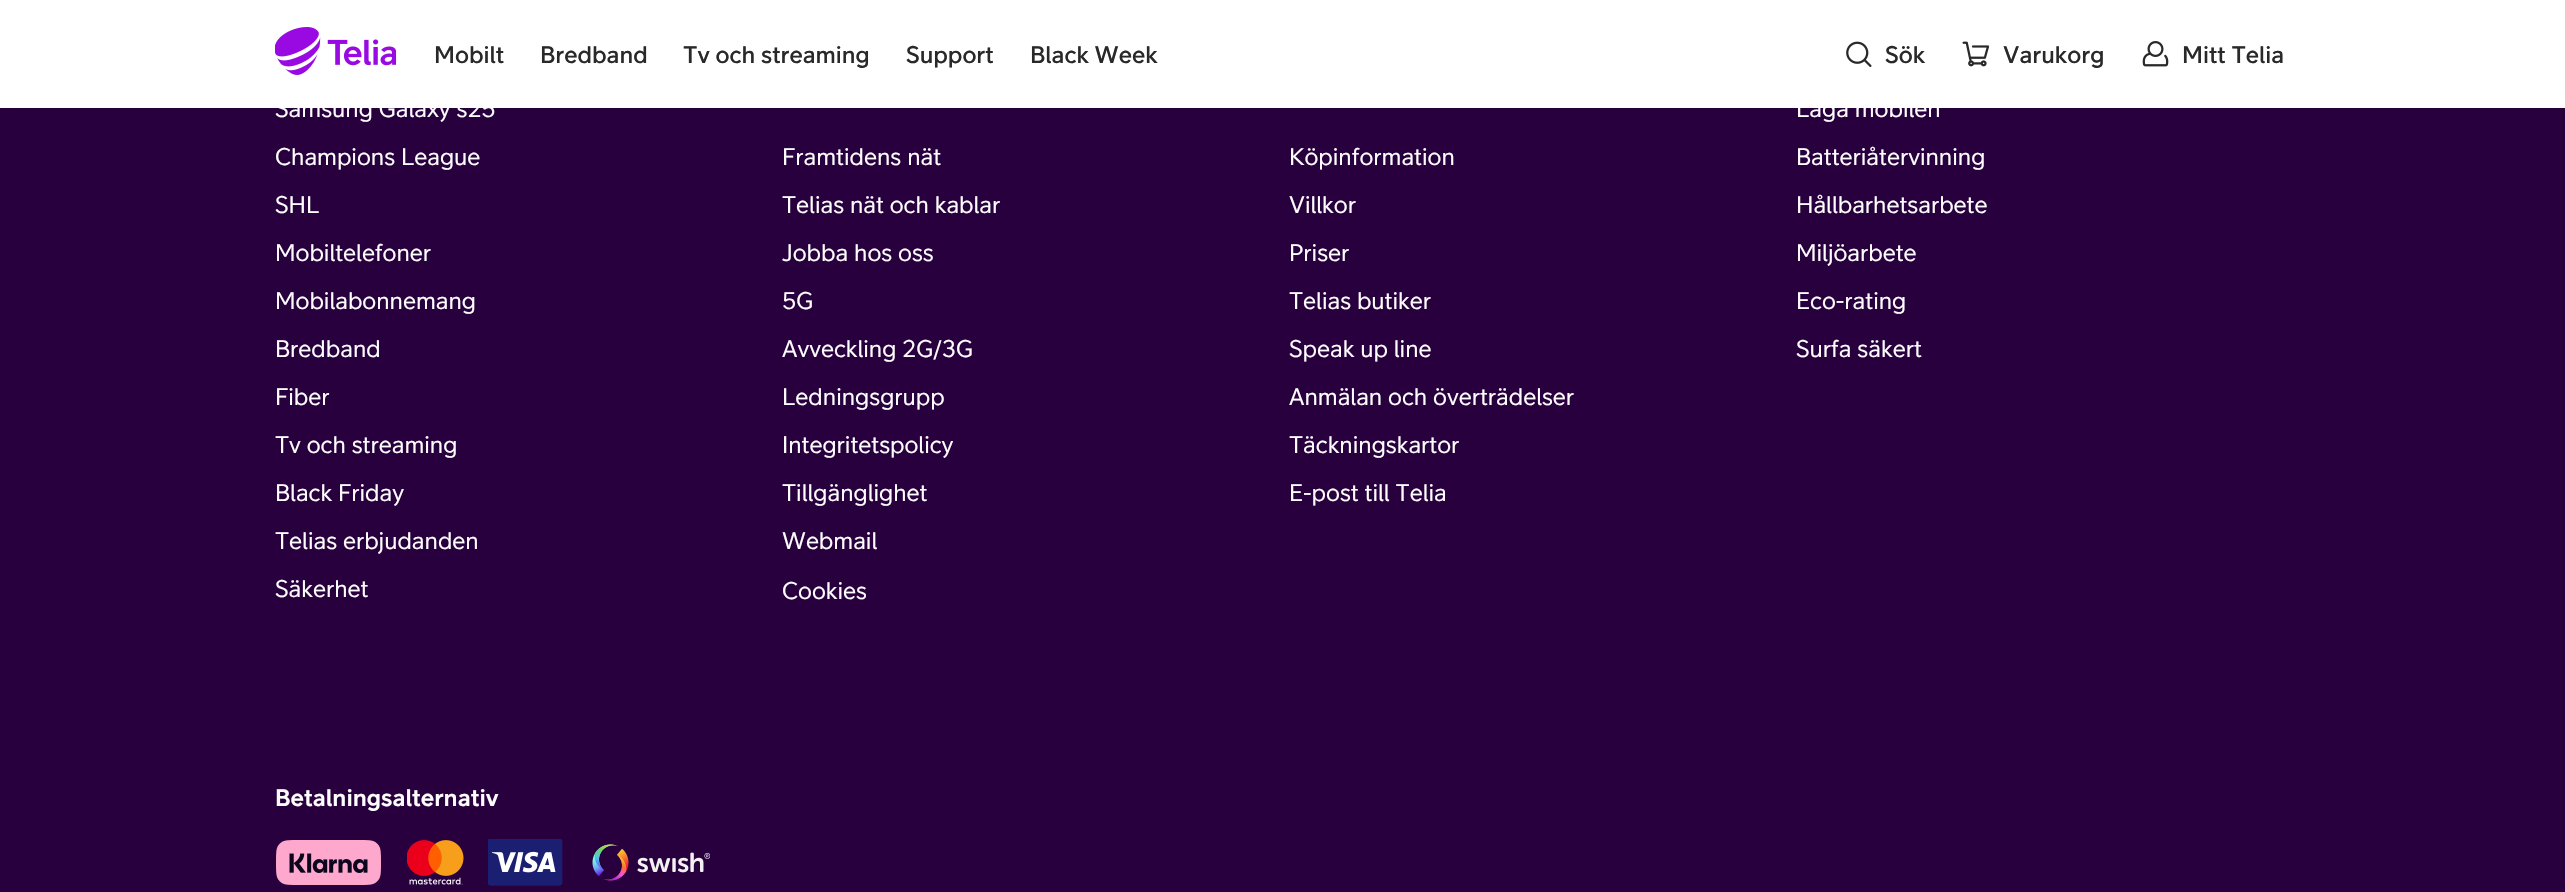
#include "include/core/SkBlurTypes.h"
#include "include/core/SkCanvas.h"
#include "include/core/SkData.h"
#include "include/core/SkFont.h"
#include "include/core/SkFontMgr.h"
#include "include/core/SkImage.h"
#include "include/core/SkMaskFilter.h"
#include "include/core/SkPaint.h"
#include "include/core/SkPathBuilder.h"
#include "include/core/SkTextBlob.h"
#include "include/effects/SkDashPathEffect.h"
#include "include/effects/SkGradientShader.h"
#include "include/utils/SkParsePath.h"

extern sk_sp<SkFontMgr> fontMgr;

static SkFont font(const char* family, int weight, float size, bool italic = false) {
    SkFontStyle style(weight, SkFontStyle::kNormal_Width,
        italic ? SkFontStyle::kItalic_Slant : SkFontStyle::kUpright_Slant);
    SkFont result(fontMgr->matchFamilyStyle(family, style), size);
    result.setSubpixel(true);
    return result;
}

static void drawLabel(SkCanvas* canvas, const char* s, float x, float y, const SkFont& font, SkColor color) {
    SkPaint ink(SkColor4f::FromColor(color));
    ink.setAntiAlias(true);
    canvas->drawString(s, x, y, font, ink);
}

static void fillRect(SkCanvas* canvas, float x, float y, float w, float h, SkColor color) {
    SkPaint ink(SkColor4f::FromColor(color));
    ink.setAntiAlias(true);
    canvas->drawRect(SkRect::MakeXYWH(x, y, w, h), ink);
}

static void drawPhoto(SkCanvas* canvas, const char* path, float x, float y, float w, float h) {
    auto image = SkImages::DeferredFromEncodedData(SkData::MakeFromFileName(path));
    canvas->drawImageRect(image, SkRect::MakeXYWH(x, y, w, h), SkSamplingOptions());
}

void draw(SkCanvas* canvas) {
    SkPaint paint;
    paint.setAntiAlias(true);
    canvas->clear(0xFF29003E);
    paint.setColor(0x1A000000);
    paint.setMaskFilter(SkMaskFilter::MakeBlur(kNormal_SkBlurStyle, 3));
    canvas->drawRect(SkRect::MakeXYWH(0, 2, 2565, 108), paint);
    paint.setMaskFilter(nullptr);
    fillRect(canvas, 0, 0, 2565, 108, 0xFFFFFFFF);
    drawPhoto(canvas, "assets/img1.png", 275, 27, 122, 48);
    SkFont font1 = font("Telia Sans", 500, 24);
    drawLabel(canvas, "Mobilt", 434, 63, font1, 0xFF292929);
    drawLabel(canvas, "Bredband", 540, 63, font1, 0xFF292929);
    drawLabel(canvas, "Tv och streaming", 683, 63, font1, 0xFF292929);
    drawLabel(canvas, "Support", 906, 63, font1, 0xFF292929);
    drawLabel(canvas, "Black Week", 1030, 63, font1, 0xFF292929);
    drawPhoto(canvas, "assets/img2.png", 1846, 41, 26, 26);
    drawLabel(canvas, "Sök", 1885, 63, font1, 0xFF292929);
    drawPhoto(canvas, "assets/img3.png", 1962, 41, 28, 26);
    drawLabel(canvas, "Varukorg", 2003, 63, font1, 0xFF292929);
    drawPhoto(canvas, "assets/img4.png", 2142, 41, 27, 26);
    drawLabel(canvas, "Mitt Telia", 2182, 63, font1, 0xFF292929);
    SkFont font2 = font("Telia Sans", 400, 24);
    drawLabel(canvas, "Samsung Galaxy s25", 275, 117, font2, 0xFFFFFFFF);
    drawLabel(canvas, "Champions League", 275, 165, font2, 0xFFFFFFFF);
    drawLabel(canvas, "SHL", 275, 213, font2, 0xFFFFFFFF);
    drawLabel(canvas, "Mobiltelefoner", 275, 261, font2, 0xFFFFFFFF);
    drawLabel(canvas, "Mobilabonnemang", 275, 309, font2, 0xFFFFFFFF);
    drawLabel(canvas, "Bredband", 275, 357, font2, 0xFFFFFFFF);
    drawLabel(canvas, "Fiber", 275, 405, font2, 0xFFFFFFFF);
    drawLabel(canvas, "Tv och streaming", 275, 453, font2, 0xFFFFFFFF);
    drawLabel(canvas, "Black Friday", 275, 501, font2, 0xFFFFFFFF);
    drawLabel(canvas, "Telias erbjudanden", 275, 549, font2, 0xFFFFFFFF);
    drawLabel(canvas, "Säkerhet", 275, 597, font2, 0xFFFFFFFF);
    drawLabel(canvas, "Framtidens nät", 782, 165, font2, 0xFFFFFFFF);
    drawLabel(canvas, "Telias nät och kablar", 782, 213, font2, 0xFFFFFFFF);
    drawLabel(canvas, "Jobba hos oss", 782, 261, font2, 0xFFFFFFFF);
    drawLabel(canvas, "5G", 782, 309, font2, 0xFFFFFFFF);
    drawLabel(canvas, "Avveckling 2G/3G", 782, 357, font2, 0xFFFFFFFF);
    drawLabel(canvas, "Ledningsgrupp", 782, 405, font2, 0xFFFFFFFF);
    drawLabel(canvas, "Integritetspolicy", 782, 453, font2, 0xFFFFFFFF);
    drawLabel(canvas, "Tillgänglighet", 782, 501, font2, 0xFFFFFFFF);
    drawLabel(canvas, "Webmail", 782, 549, font2, 0xFFFFFFFF);
    drawLabel(canvas, "Cookies", 782, 599, font2, 0xFFFFFFFF);
    drawLabel(canvas, "Köpinformation", 1289, 165, font2, 0xFFFFFFFF);
    drawLabel(canvas, "Villkor", 1289, 213, font2, 0xFFFFFFFF);
    drawLabel(canvas, "Priser", 1289, 261, font2, 0xFFFFFFFF);
    drawLabel(canvas, "Telias butiker", 1289, 309, font2, 0xFFFFFFFF);
    drawLabel(canvas, "Speak up line", 1289, 357, font2, 0xFFFFFFFF);
    drawLabel(canvas, "Anmälan och överträdelser", 1289, 405, font2, 0xFFFFFFFF);
    drawLabel(canvas, "Täckningskartor", 1289, 453, font2, 0xFFFFFFFF);
    drawLabel(canvas, "E-post till Telia", 1289, 501, font2, 0xFFFFFFFF);
    drawLabel(canvas, "Laga mobilen", 1796, 117, font2, 0xFFFFFFFF);
    drawLabel(canvas, "Batteriåtervinning", 1796, 165, font2, 0xFFFFFFFF);
    drawLabel(canvas, "Hållbarhetsarbete", 1796, 213, font2, 0xFFFFFFFF);
    drawLabel(canvas, "Miljöarbete", 1796, 261, font2, 0xFFFFFFFF);
    drawLabel(canvas, "Eco-rating", 1796, 309, font2, 0xFFFFFFFF);
    drawLabel(canvas, "Surfa säkert", 1796, 357, font2, 0xFFFFFFFF);
    SkFont font3 = font("Telia Sans", 700, 24);
    drawLabel(canvas, "Betalningsalternativ", 275, 806, font3, 0xFFFFFFFF);
    drawPhoto(canvas, "assets/img5.png", 276, 840, 105, 45);
    drawPhoto(canvas, "assets/img6.png", 407, 840, 57, 45);
    drawPhoto(canvas, "assets/img7.png", 488, 839, 75, 47);
    drawPhoto(canvas, "assets/img8.png", 592, 844, 118, 37);
}
